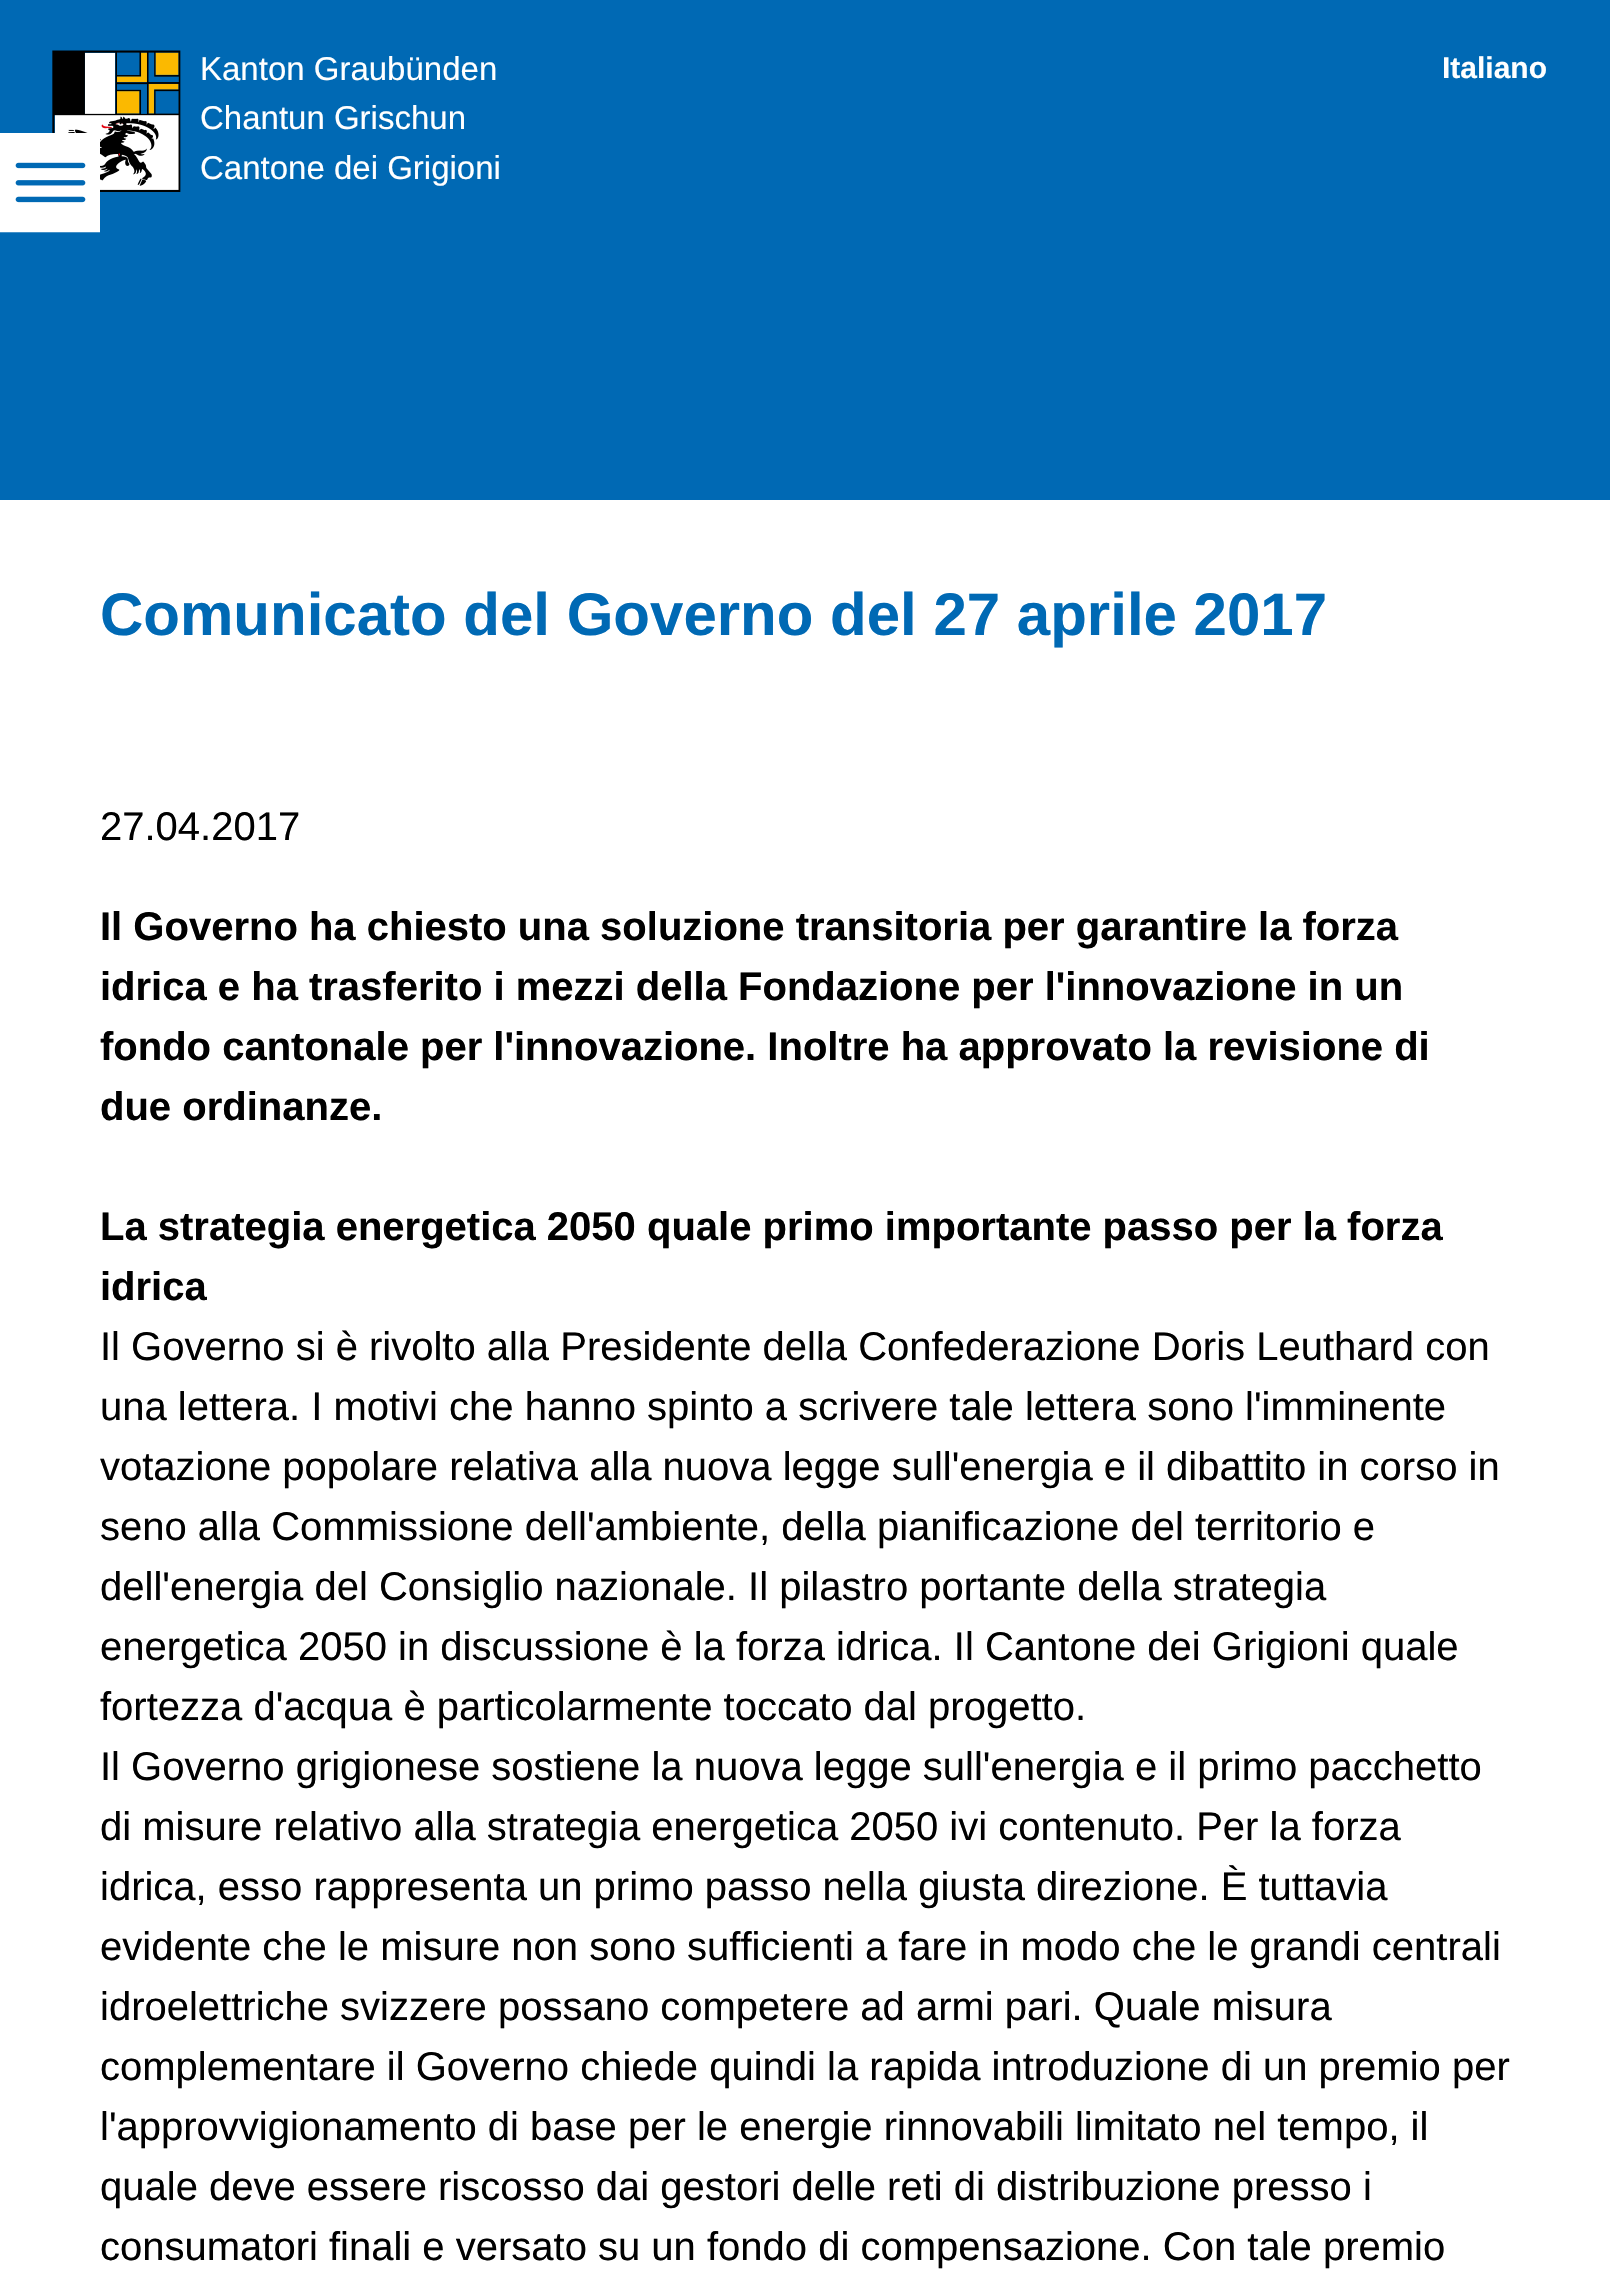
#include "include/core/SkBlurTypes.h"
#include "include/core/SkCanvas.h"
#include "include/core/SkData.h"
#include "include/core/SkFont.h"
#include "include/core/SkFontMgr.h"
#include "include/core/SkImage.h"
#include "include/core/SkMaskFilter.h"
#include "include/core/SkPaint.h"
#include "include/core/SkPathBuilder.h"
#include "include/core/SkTextBlob.h"
#include "include/effects/SkDashPathEffect.h"
#include "include/effects/SkGradientShader.h"
#include "include/utils/SkParsePath.h"

extern sk_sp<SkFontMgr> fontMgr;

static SkFont font(const char* family, int weight, float size, bool italic = false) {
    SkFontStyle style(weight, SkFontStyle::kNormal_Width,
        italic ? SkFontStyle::kItalic_Slant : SkFontStyle::kUpright_Slant);
    SkFont result(fontMgr->matchFamilyStyle(family, style), size);
    result.setSubpixel(true);
    return result;
}

static void drawLabel(SkCanvas* canvas, const char* s, float x, float y, const SkFont& font, SkColor color) {
    SkPaint ink(SkColor4f::FromColor(color));
    ink.setAntiAlias(true);
    canvas->drawString(s, x, y, font, ink);
}

static void fillRect(SkCanvas* canvas, float x, float y, float w, float h, SkColor color) {
    SkPaint ink(SkColor4f::FromColor(color));
    ink.setAntiAlias(true);
    canvas->drawRect(SkRect::MakeXYWH(x, y, w, h), ink);
}

static void drawPhoto(SkCanvas* canvas, const char* path, float x, float y, float w, float h) {
    auto image = SkImages::DeferredFromEncodedData(SkData::MakeFromFileName(path));
    canvas->drawImageRect(image, SkRect::MakeXYWH(x, y, w, h), SkSamplingOptions());
}

void draw(SkCanvas* canvas) {
    SkPaint paint;
    paint.setAntiAlias(true);
    canvas->clear(0xFFFFFFFF);
    fillRect(canvas, 0, 0, 1610, 500, 0xFF0069B4);
    drawPhoto(canvas, "assets/img1.png", 52, 50, 129, 142);
    SkFont font1 = font("Liberation Sans", 400, 33);
    drawLabel(canvas, "Kanton Graubünden", 200, 80, font1, 0xFFFFFFFF);
    drawLabel(canvas, "Chantun Grischun", 200, 129, font1, 0xFFFFFFFF);
    drawLabel(canvas, "Cantone dei Grigioni", 200, 179, font1, 0xFFFFFFFF);
    SkFont font2 = font("Liberation Sans", 700, 30);
    drawLabel(canvas, "Italiano", 1442, 78, font2, 0xFFFFFFFF);
    fillRect(canvas, 52, 162, 48, 30, 0xFF0069B4);
    drawPhoto(canvas, "assets/img2.png", 0, 133, 100, 100);
    SkFont font3 = font("Liberation Sans", 700, 60);
    drawLabel(canvas, "Comunicato del Governo del 27 aprile 2017", 100, 635, font3, 0xFF0069B4);
    SkFont font4 = font("Liberation Sans", 400, 40);
    drawLabel(canvas, "27.04.2017", 100, 840, font4, 0xFF000000);
    SkFont font5 = font("Liberation Sans", 700, 40);
    drawLabel(canvas, "Il Governo ha chiesto una soluzione transitoria per garantire la forza", 100, 940, font5, 0xFF000000);
    drawLabel(canvas, "idrica e ha trasferito i mezzi della Fondazione per l'innovazione in un", 100, 1000, font5, 0xFF000000);
    drawLabel(canvas, "fondo cantonale per l'innovazione. Inoltre ha approvato la revisione di", 100, 1060, font5, 0xFF000000);
    drawLabel(canvas, "due ordinanze.", 100, 1120, font5, 0xFF000000);
    drawLabel(canvas, "La strategia energetica 2050 quale primo importante passo per la forza", 100, 1240, font5, 0xFF000000);
    drawLabel(canvas, "idrica", 100, 1300, font5, 0xFF000000);
    drawLabel(canvas, "Il Governo si è rivolto alla Presidente della Confederazione Doris Leuthard con", 100, 1360, font4, 0xFF000000);
    drawLabel(canvas, "una lettera. I motivi che hanno spinto a scrivere tale lettera sono l'imminente", 100, 1420, font4, 0xFF000000);
    drawLabel(canvas, "votazione popolare relativa alla nuova legge sull'energia e il dibattito in corso in", 100, 1480, font4, 0xFF000000);
    drawLabel(canvas, "seno alla Commissione dell'ambiente, della pianificazione del territorio e", 100, 1540, font4, 0xFF000000);
    drawLabel(canvas, "dell'energia del Consiglio nazionale. Il pilastro portante della strategia", 100, 1600, font4, 0xFF000000);
    drawLabel(canvas, "energetica 2050 in discussione è la forza idrica. Il Cantone dei Grigioni quale", 100, 1660, font4, 0xFF000000);
    drawLabel(canvas, "fortezza d'acqua è particolarmente toccato dal progetto.", 100, 1720, font4, 0xFF000000);
    drawLabel(canvas, "Il Governo grigionese sostiene la nuova legge sull'energia e il primo pacchetto", 100, 1780, font4, 0xFF000000);
    drawLabel(canvas, "di misure relativo alla strategia energetica 2050 ivi contenuto. Per la forza", 100, 1840, font4, 0xFF000000);
    drawLabel(canvas, "idrica, esso rappresenta un primo passo nella giusta direzione. È tuttavia", 100, 1900, font4, 0xFF000000);
    drawLabel(canvas, "evidente che le misure non sono sufficienti a fare in modo che le grandi centrali", 100, 1960, font4, 0xFF000000);
    drawLabel(canvas, "idroelettriche svizzere possano competere ad armi pari. Quale misura", 100, 2020, font4, 0xFF000000);
    drawLabel(canvas, "complementare il Governo chiede quindi la rapida introduzione di un premio per", 100, 2080, font4, 0xFF000000);
    drawLabel(canvas, "l'approvvigionamento di base per le energie rinnovabili limitato nel tempo, il", 100, 2140, font4, 0xFF000000);
    drawLabel(canvas, "quale deve essere riscosso dai gestori delle reti di distribuzione presso i", 100, 2200, font4, 0xFF000000);
    drawLabel(canvas, "consumatori finali e versato su un fondo di compensazione. Con tale premio", 100, 2260, font4, 0xFF000000);
}
